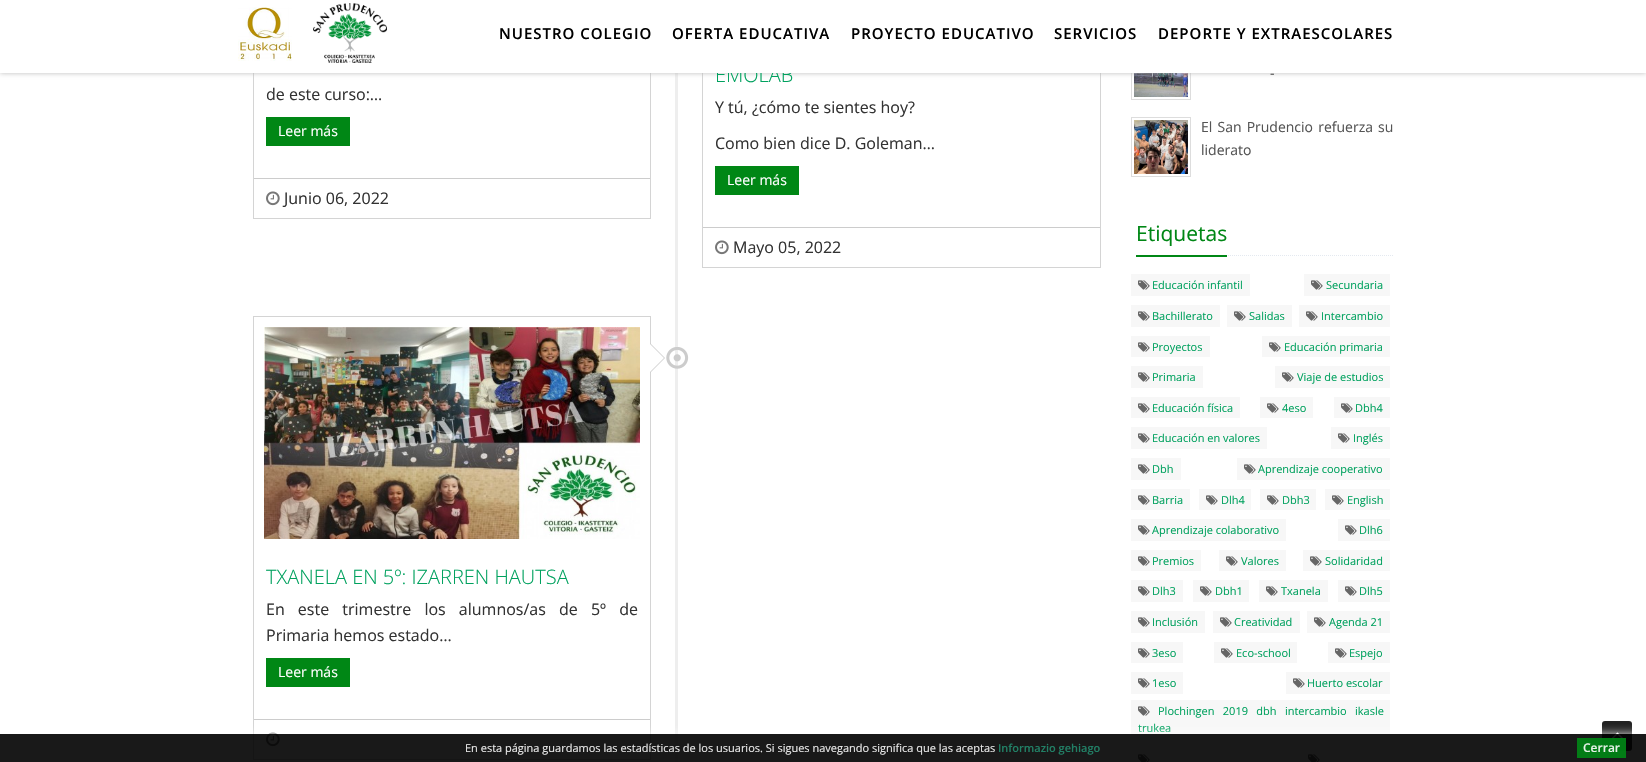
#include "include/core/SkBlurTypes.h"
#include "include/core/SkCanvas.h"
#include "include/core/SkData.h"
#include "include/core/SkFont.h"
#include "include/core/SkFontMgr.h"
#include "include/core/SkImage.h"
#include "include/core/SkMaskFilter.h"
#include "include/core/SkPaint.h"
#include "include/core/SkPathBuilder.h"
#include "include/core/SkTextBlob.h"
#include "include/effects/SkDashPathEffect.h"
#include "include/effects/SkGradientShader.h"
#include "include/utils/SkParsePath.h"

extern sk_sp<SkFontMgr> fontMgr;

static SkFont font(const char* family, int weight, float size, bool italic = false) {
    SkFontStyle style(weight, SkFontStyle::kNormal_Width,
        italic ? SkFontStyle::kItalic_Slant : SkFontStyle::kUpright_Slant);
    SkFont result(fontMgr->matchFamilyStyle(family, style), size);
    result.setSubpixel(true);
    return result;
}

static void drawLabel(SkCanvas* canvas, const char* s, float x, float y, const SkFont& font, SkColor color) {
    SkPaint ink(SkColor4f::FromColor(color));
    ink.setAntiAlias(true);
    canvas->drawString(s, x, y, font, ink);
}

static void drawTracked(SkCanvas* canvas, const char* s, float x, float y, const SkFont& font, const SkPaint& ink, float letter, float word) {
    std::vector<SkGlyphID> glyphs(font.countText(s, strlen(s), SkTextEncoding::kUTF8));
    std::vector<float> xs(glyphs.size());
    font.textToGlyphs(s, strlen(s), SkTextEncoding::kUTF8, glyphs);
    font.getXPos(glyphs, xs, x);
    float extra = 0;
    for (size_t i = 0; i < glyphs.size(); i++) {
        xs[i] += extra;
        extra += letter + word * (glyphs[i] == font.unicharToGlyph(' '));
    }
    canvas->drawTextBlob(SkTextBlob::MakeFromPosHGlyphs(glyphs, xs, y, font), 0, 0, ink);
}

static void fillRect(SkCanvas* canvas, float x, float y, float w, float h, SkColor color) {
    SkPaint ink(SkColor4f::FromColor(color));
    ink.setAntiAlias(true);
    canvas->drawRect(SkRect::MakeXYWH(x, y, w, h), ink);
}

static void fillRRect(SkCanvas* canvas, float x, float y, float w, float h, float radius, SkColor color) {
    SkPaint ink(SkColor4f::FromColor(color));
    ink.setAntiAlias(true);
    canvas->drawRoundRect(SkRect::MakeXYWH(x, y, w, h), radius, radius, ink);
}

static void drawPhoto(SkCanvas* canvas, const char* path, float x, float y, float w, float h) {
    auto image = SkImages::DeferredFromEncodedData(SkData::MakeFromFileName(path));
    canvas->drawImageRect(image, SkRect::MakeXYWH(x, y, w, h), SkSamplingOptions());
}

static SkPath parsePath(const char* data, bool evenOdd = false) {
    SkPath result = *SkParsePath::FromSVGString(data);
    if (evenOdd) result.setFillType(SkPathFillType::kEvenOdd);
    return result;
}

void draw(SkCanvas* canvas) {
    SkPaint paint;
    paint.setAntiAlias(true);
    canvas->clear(0xFFFFFFFF);
    paint.setStroke(true);
    paint.setStrokeWidth(1);
    paint.setColor(0xFFD4D4D4);
    canvas->drawRect(SkRect::MakeXYWH(253.5f, -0.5f, 397, 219), paint);
    fillRect(canvas, 675, 73, 3, 689, 0xFFEEEEEE);
    canvas->drawRect(SkRect::MakeXYWH(702.5f, -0.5f, 398, 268), paint);
    paint.setColor(0xFFDDDDDD);
    canvas->drawRect(SkRect::MakeXYWH(1131.5f, 40.5f, 59, 59), paint);
    drawPhoto(canvas, "assets/img6.png", 1134, 73, 54, 24);
    paint.setStroke(false);
    paint.setColor(0xFFBBBBBB);
    paint.setMaskFilter(SkMaskFilter::MakeBlur(kNormal_SkBlurStyle, 2.5f));
    canvas->drawRect(SkRect::MakeXYWH(0, 0, 1646, 73), paint);
    paint.setMaskFilter(nullptr);
    SkFont font1 = font("Open Sans", 300, 20);
    drawLabel(canvas, "EMOLAB", 715, 82, font1, 0xFF00A15E);
    fillRect(canvas, 0, 0, 1646, 73, 0xFFFFFFFF);
    drawPhoto(canvas, "assets/img1.png", 238, 7, 54, 54);
    drawPhoto(canvas, "assets/img2.png", 313, 3, 74, 60);
    SkFont font2 = font("Open Sans", 600, 15);
    paint.setColor(0xFF000000);
    drawTracked(canvas, "NUESTRO COLEGIO", 499, 39, font2, paint, 1, 0);
    drawTracked(canvas, "OFERTA EDUCATIVA", 672, 39, font2, paint, 1, 0);
    drawTracked(canvas, "PROYECTO EDUCATIVO", 851, 39, font2, paint, 1, 0);
    drawTracked(canvas, "SERVICIOS", 1054, 39, font2, paint, 1, 0);
    drawTracked(canvas, "DEPORTE Y EXTRAESCOLARES", 1158, 39, font2, paint, 1, 0);
    SkFont font3 = font("Open Sans", 400, 16);
    drawLabel(canvas, "de este curso:…", 266, 100, font3, 0xFF333333);
    fillRect(canvas, 266, 117, 84, 29, 0xFF008715);
    SkFont font4 = font("Open Sans", 400, 14);
    drawLabel(canvas, "Leer más", 278, 136, font4, 0xFFFFFFFF);
    fillRect(canvas, 254, 178, 396, 1, 0xFFCCCCCC);
    drawPhoto(canvas, "assets/img3.png", 266, 191, 14, 15);
    drawLabel(canvas, "Junio 06, 2022", 284, 204, font3, 0xFF333333);
    drawLabel(canvas, "Y tú, ¿cómo te sientes hoy?", 715, 113, font3, 0xFF333333);
    drawLabel(canvas, "Como bien dice D. Goleman…", 715, 149, font3, 0xFF333333);
    fillRect(canvas, 715, 166, 84, 29, 0xFF008715);
    drawLabel(canvas, "Leer más", 727, 185, font4, 0xFFFFFFFF);
    fillRect(canvas, 703, 227, 397, 1, 0xFFCCCCCC);
    drawPhoto(canvas, "assets/img3.png", 715, 240, 14, 15);
    drawLabel(canvas, "Mayo 05, 2022", 733, 253, font3, 0xFF333333);
    drawPhoto(canvas, "assets/img4.png", 666, 347, 23, 22);
    paint.setStroke(true);
    paint.setColor(0xFFD4D4D4);
    canvas->drawRect(SkRect::MakeXYWH(253.5f, 316.5f, 397, 443), paint);
    drawPhoto(canvas, "assets/img5.png", 264, 327, 376, 212);
    paint.setStroke(false);
    paint.setColor(0xFFCCCCCC);
    canvas->drawPath(parsePath("M650 373V343L665 358Z"), paint);
    paint.setColor(0xFFFFFFFF);
    canvas->drawPath(parsePath("M650 372V344L664 358Z"), paint);
    drawLabel(canvas, "TXANELA EN 5º: IZARREN HAUTSA", 266, 584, font1, 0xFF00A15E);
    paint.setColor(0xFF333333);
    drawTracked(canvas, "En este trimestre los alumnos/as de 5º de", 266, 615, font3, paint, 0, 9);
    drawLabel(canvas, "Primaria hemos estado…", 266, 641, font3, 0xFF333333);
    fillRect(canvas, 266, 658, 84, 29, 0xFF008715);
    drawLabel(canvas, "Leer más", 278, 677, font4, 0xFFFFFFFF);
    fillRect(canvas, 254, 719, 396, 1, 0xFFCCCCCC);
    drawPhoto(canvas, "assets/img3.png", 266, 732, 14, 15);
    drawLabel(canvas, "-", 1270, 78, font4, 0xFF555555);
    paint.setStroke(true);
    paint.setColor(0xFFDDDDDD);
    canvas->drawRect(SkRect::MakeXYWH(1131.5f, 117.5f, 59, 59), paint);
    drawPhoto(canvas, "assets/img7.png", 1134, 120, 54, 54);
    paint.setStroke(false);
    paint.setColor(0xFF555555);
    drawTracked(canvas, "El San Prudencio refuerza su", 1201, 132, font4, paint, 0, 1.5f);
    drawLabel(canvas, "liderato", 1201, 155, font4, 0xFF555555);
    paint.setStroke(true);
    paint.setColor(0xFFE4E9F0);
    paint.setPathEffect(SkDashPathEffect::Make({{1, 1}}, 0));
    canvas->drawPath(parsePath("M1136 255.5H1393"), paint);
    paint.setPathEffect(nullptr);
    fillRect(canvas, 1136, 255, 91, 2, 0xFF008715);
    SkFont font5 = font("Open Sans", 400, 21);
    drawLabel(canvas, "Etiquetas", 1136, 241, font5, 0xFF008715);
    fillRect(canvas, 1131, 274, 119, 22, 0xFFF7F7F7);
    drawPhoto(canvas, "assets/img8.png", 1138, 280, 12, 10);
    SkFont font6 = font("Open Sans", 400, 11);
    drawLabel(canvas, "Educación infantil", 1152, 289, font6, 0xFF00A15E);
    fillRect(canvas, 1304, 274, 86, 22, 0xFFF7F7F7);
    drawPhoto(canvas, "assets/img8.png", 1311, 280, 12, 10);
    drawLabel(canvas, "Secundaria", 1326, 289, font6, 0xFF00A15E);
    fillRect(canvas, 1131, 305, 89, 22, 0xFFF7F7F7);
    drawPhoto(canvas, "assets/img8.png", 1138, 311, 12, 10);
    drawLabel(canvas, "Bachillerato", 1152, 320, font6, 0xFF00A15E);
    fillRect(canvas, 1227, 305, 65, 22, 0xFFF7F7F7);
    drawPhoto(canvas, "assets/img8.png", 1234, 311, 12, 10);
    drawLabel(canvas, "Salidas", 1249, 320, font6, 0xFF00A15E);
    fillRect(canvas, 1299, 305, 91, 22, 0xFFF7F7F7);
    drawPhoto(canvas, "assets/img8.png", 1306, 311, 12, 10);
    drawLabel(canvas, "Intercambio", 1321, 320, font6, 0xFF00A15E);
    fillRect(canvas, 1131, 336, 79, 21, 0xFFF7F7F7);
    drawPhoto(canvas, "assets/img8.png", 1138, 342, 12, 10);
    drawLabel(canvas, "Proyectos", 1152, 351, font6, 0xFF00A15E);
    fillRect(canvas, 1262, 336, 128, 21, 0xFFF7F7F7);
    drawPhoto(canvas, "assets/img8.png", 1269, 342, 12, 10);
    drawLabel(canvas, "Educación primaria", 1284, 351, font6, 0xFF00A15E);
    fillRect(canvas, 1131, 366, 72, 22, 0xFFF7F7F7);
    drawPhoto(canvas, "assets/img8.png", 1138, 372, 12, 10);
    drawLabel(canvas, "Primaria", 1152, 381, font6, 0xFF00A15E);
    fillRect(canvas, 1275, 366, 115, 22, 0xFFF7F7F7);
    drawPhoto(canvas, "assets/img8.png", 1282, 372, 12, 10);
    drawLabel(canvas, "Viaje de estudios", 1297, 381, font6, 0xFF00A15E);
    fillRect(canvas, 1131, 397, 109, 21, 0xFFF7F7F7);
    drawPhoto(canvas, "assets/img8.png", 1138, 403, 12, 10);
    drawLabel(canvas, "Educación física", 1152, 412, font6, 0xFF00A15E);
    fillRect(canvas, 1260, 397, 53, 21, 0xFFF7F7F7);
    drawPhoto(canvas, "assets/img8.png", 1267, 403, 12, 10);
    drawLabel(canvas, "4eso", 1282, 412, font6, 0xFF00A15E);
    fillRect(canvas, 1334, 397, 56, 21, 0xFFF7F7F7);
    drawPhoto(canvas, "assets/img8.png", 1341, 403, 12, 10);
    drawLabel(canvas, "Dbh4", 1355, 412, font6, 0xFF00A15E);
    fillRect(canvas, 1131, 427, 136, 22, 0xFFF7F7F7);
    drawPhoto(canvas, "assets/img8.png", 1138, 433, 12, 10);
    drawLabel(canvas, "Educación en valores", 1152, 442, font6, 0xFF00A15E);
    fillRect(canvas, 1331, 427, 59, 22, 0xFFF7F7F7);
    drawPhoto(canvas, "assets/img8.png", 1338, 433, 12, 10);
    drawLabel(canvas, "Inglés", 1353, 442, font6, 0xFF00A15E);
    fillRect(canvas, 1131, 458, 50, 22, 0xFFF7F7F7);
    drawPhoto(canvas, "assets/img8.png", 1138, 464, 12, 10);
    drawLabel(canvas, "Dbh", 1152, 473, font6, 0xFF00A15E);
    fillRect(canvas, 1237, 458, 153, 22, 0xFFF7F7F7);
    drawPhoto(canvas, "assets/img8.png", 1244, 464, 12, 10);
    drawLabel(canvas, "Aprendizaje cooperativo", 1258, 473, font6, 0xFF00A15E);
    fillRect(canvas, 1131, 489, 59, 21, 0xFFF7F7F7);
    drawPhoto(canvas, "assets/img8.png", 1138, 495, 12, 10);
    drawLabel(canvas, "Barria", 1152, 504, font6, 0xFF00A15E);
    fillRect(canvas, 1199, 489, 52, 21, 0xFFF7F7F7);
    drawPhoto(canvas, "assets/img8.png", 1206, 495, 12, 10);
    drawLabel(canvas, "Dlh4", 1221, 504, font6, 0xFF00A15E);
    fillRect(canvas, 1260, 489, 56, 21, 0xFFF7F7F7);
    drawPhoto(canvas, "assets/img8.png", 1267, 495, 12, 10);
    drawLabel(canvas, "Dbh3", 1282, 504, font6, 0xFF00A15E);
    fillRect(canvas, 1325, 489, 65, 21, 0xFFF7F7F7);
    drawPhoto(canvas, "assets/img8.png", 1332, 495, 12, 10);
    drawLabel(canvas, "English", 1347, 504, font6, 0xFF00A15E);
    fillRect(canvas, 1131, 519, 155, 22, 0xFFF7F7F7);
    drawPhoto(canvas, "assets/img8.png", 1138, 525, 12, 10);
    drawLabel(canvas, "Aprendizaje colaborativo", 1152, 534, font6, 0xFF00A15E);
    fillRect(canvas, 1338, 519, 52, 22, 0xFFF7F7F7);
    drawPhoto(canvas, "assets/img8.png", 1345, 525, 12, 10);
    drawLabel(canvas, "Dlh6", 1359, 534, font6, 0xFF00A15E);
    fillRect(canvas, 1131, 550, 70, 21, 0xFFF7F7F7);
    drawPhoto(canvas, "assets/img8.png", 1138, 556, 12, 10);
    drawLabel(canvas, "Premios", 1152, 565, font6, 0xFF00A15E);
    fillRect(canvas, 1219, 550, 67, 21, 0xFFF7F7F7);
    drawPhoto(canvas, "assets/img8.png", 1226, 556, 12, 10);
    drawLabel(canvas, "Valores", 1241, 565, font6, 0xFF00A15E);
    fillRect(canvas, 1303, 550, 87, 21, 0xFFF7F7F7);
    drawPhoto(canvas, "assets/img8.png", 1310, 556, 12, 10);
    drawLabel(canvas, "Solidaridad", 1325, 565, font6, 0xFF00A15E);
    fillRect(canvas, 1131, 580, 52, 22, 0xFFF7F7F7);
    drawPhoto(canvas, "assets/img8.png", 1138, 586, 12, 10);
    drawLabel(canvas, "Dlh3", 1152, 595, font6, 0xFF00A15E);
    fillRect(canvas, 1193, 580, 56, 22, 0xFFF7F7F7);
    drawPhoto(canvas, "assets/img8.png", 1200, 586, 12, 10);
    drawLabel(canvas, "Dbh1", 1215, 595, font6, 0xFF00A15E);
    fillRect(canvas, 1259, 580, 69, 22, 0xFFF7F7F7);
    drawPhoto(canvas, "assets/img8.png", 1266, 586, 12, 10);
    drawLabel(canvas, "Txanela", 1281, 595, font6, 0xFF00A15E);
    fillRect(canvas, 1338, 580, 52, 22, 0xFFF7F7F7);
    drawPhoto(canvas, "assets/img8.png", 1345, 586, 12, 10);
    drawLabel(canvas, "Dlh5", 1359, 595, font6, 0xFF00A15E);
    fillRect(canvas, 1131, 611, 74, 22, 0xFFF7F7F7);
    drawPhoto(canvas, "assets/img8.png", 1138, 617, 12, 10);
    drawLabel(canvas, "Inclusión", 1152, 626, font6, 0xFF00A15E);
    fillRect(canvas, 1213, 611, 87, 22, 0xFFF7F7F7);
    drawPhoto(canvas, "assets/img8.png", 1220, 617, 12, 10);
    drawLabel(canvas, "Creatividad", 1234, 626, font6, 0xFF00A15E);
    fillRect(canvas, 1307, 611, 83, 22, 0xFFF7F7F7);
    drawPhoto(canvas, "assets/img8.png", 1314, 617, 12, 10);
    drawLabel(canvas, "Agenda 21", 1329, 626, font6, 0xFF00A15E);
    fillRect(canvas, 1131, 642, 52, 21, 0xFFF7F7F7);
    drawPhoto(canvas, "assets/img8.png", 1138, 648, 12, 10);
    drawLabel(canvas, "3eso", 1152, 657, font6, 0xFF00A15E);
    fillRect(canvas, 1214, 642, 83, 21, 0xFFF7F7F7);
    drawPhoto(canvas, "assets/img8.png", 1221, 648, 12, 10);
    drawLabel(canvas, "Eco-school", 1236, 657, font6, 0xFF00A15E);
    fillRect(canvas, 1328, 642, 62, 21, 0xFFF7F7F7);
    drawPhoto(canvas, "assets/img8.png", 1335, 648, 12, 10);
    drawLabel(canvas, "Espejo", 1349, 657, font6, 0xFF00A15E);
    fillRect(canvas, 1131, 672, 52, 22, 0xFFF7F7F7);
    drawPhoto(canvas, "assets/img8.png", 1138, 678, 12, 10);
    drawLabel(canvas, "1eso", 1152, 687, font6, 0xFF00A15E);
    fillRect(canvas, 1286, 672, 104, 22, 0xFFF7F7F7);
    drawPhoto(canvas, "assets/img8.png", 1293, 678, 12, 10);
    drawLabel(canvas, "Huerto escolar", 1307, 687, font6, 0xFF00A15E);
    fillRect(canvas, 1131, 700, 259, 39, 0xFFF7F7F7);
    drawPhoto(canvas, "assets/img8.png", 1138, 706, 12, 10);
    paint.setStroke(false);
    paint.setColor(0xFF00A15E);
    drawTracked(canvas, "Plochingen 2019 dbh intercambio ikasle", 1158, 715, font6, paint, 0, 5.5f);
    drawLabel(canvas, "trukea", 1138, 732, font6, 0xFF00A15E);
    fillRect(canvas, 1131, 748, 102, 14, 0xFFF7F7F7);
    drawPhoto(canvas, "assets/img9.png", 1138, 754, 12, 8);
    fillRect(canvas, 1301, 748, 89, 14, 0xFFF7F7F7);
    drawPhoto(canvas, "assets/img9.png", 1308, 754, 12, 8);
    fillRRect(canvas, 1602, 721, 30, 30, 3, 0xFF222222);
    drawPhoto(canvas, "assets/img10.png", 1611, 732, 12, 7);
    canvas->save();
    canvas->clipRect(SkRect::MakeXYWH(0, 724, 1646, 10));
    paint.setColor(0xE6FFFFFF);
    paint.setMaskFilter(SkMaskFilter::MakeBlur(kNormal_SkBlurStyle, 5));
    canvas->drawRect(SkRect::MakeXYWH(0, 734, 1646, 28), paint);
    paint.setMaskFilter(nullptr);
    canvas->restore();
    fillRect(canvas, 0, 734, 1646, 28, 0xE6000000);
    drawLabel(canvas, "En esta página guardamos las estadísticas de los usuarios. Si sigues navegando significa que las aceptas", 465, 752, font6, 0xFFE8E8E8);
    SkFont font7 = font("Open Sans", 600, 11);
    drawLabel(canvas, "Informazio gehiago", 998, 752, font7, 0xFF217F65);
    fillRect(canvas, 1577, 738, 49, 20, 0xE6008715);
    SkFont font8 = font("Open Sans", 600, 12);
    drawLabel(canvas, "Cerrar", 1583, 752, font8, 0xFFE6F2E8);
}
